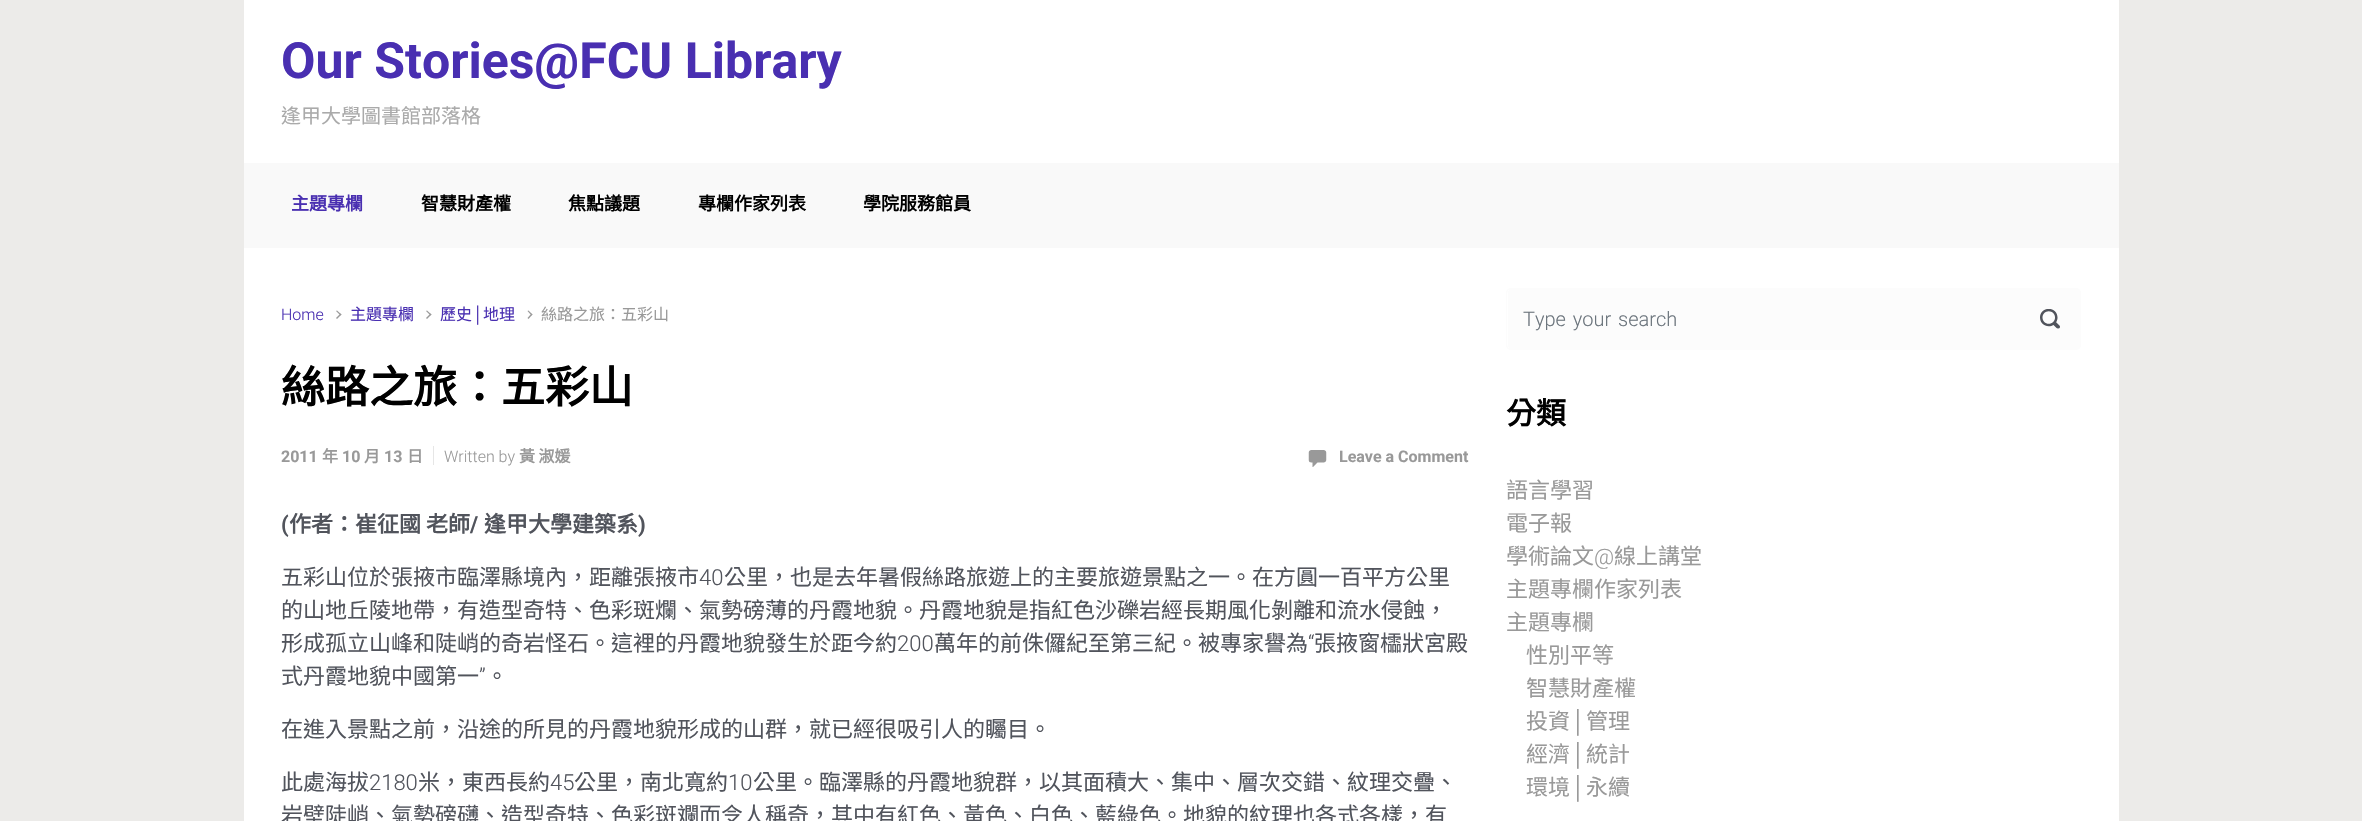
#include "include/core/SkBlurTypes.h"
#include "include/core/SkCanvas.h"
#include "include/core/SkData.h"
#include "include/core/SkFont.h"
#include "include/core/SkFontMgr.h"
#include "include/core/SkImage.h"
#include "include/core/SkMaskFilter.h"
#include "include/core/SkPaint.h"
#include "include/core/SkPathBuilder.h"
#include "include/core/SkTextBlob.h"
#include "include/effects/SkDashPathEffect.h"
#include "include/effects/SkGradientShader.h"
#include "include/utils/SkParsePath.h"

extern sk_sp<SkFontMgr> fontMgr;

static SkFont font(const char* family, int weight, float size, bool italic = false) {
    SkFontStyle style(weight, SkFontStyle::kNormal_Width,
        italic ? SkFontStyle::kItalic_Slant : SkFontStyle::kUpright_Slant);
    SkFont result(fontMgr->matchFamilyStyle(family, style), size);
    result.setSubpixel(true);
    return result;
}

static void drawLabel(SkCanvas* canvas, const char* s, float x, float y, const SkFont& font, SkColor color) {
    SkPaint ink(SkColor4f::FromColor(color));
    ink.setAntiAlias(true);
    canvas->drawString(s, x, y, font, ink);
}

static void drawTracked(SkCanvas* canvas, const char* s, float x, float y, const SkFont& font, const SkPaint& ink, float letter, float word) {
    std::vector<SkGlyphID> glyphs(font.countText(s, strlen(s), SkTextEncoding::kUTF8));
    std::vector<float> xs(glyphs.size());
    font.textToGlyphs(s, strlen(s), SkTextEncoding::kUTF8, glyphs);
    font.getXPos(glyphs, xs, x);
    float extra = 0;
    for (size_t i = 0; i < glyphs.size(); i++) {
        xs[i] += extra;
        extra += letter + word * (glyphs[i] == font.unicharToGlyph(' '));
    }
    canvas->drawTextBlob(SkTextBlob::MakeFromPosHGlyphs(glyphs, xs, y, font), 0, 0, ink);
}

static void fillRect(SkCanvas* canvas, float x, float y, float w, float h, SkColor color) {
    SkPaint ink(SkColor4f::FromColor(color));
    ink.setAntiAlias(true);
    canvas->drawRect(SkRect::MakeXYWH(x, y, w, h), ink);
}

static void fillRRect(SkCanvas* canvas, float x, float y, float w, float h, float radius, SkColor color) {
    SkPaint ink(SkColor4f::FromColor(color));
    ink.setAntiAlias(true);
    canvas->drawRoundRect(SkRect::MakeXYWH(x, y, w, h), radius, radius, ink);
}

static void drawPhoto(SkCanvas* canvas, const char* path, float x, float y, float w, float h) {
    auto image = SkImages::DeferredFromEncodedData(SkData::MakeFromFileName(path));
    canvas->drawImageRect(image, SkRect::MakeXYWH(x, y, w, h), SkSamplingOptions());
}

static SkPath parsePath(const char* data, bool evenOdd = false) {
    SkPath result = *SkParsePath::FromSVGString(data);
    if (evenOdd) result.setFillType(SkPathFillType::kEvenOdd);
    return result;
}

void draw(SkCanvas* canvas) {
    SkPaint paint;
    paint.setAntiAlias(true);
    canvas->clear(0xFFECEBE9);
    fillRect(canvas, 244, 163, 1875, 85, 0xFFF9F9F9);
    fillRect(canvas, 244, 0, 1875, 163, 0xFFFFFFFF);
    SkFont font1 = font("Roboto", 700, 50);
    drawLabel(canvas, "Our Stories@FCU Library", 281, 78, font1, 0xFF492FB1);
    SkFont font2 = font("Noto Sans CJK TC", 400, 20);
    drawLabel(canvas, "逢甲大學圖書館部落格", 281, 123, font2, 0xFFAAAAAA);
    SkFont font3 = font("Noto Sans CJK TC", 700, 18);
    drawLabel(canvas, "主題專欄", 291, 210, font3, 0xFF492FB1);
    drawLabel(canvas, "智慧財產權", 421, 210, font3, 0xFF000000);
    drawLabel(canvas, "焦點議題", 568, 210, font3, 0xFF000000);
    drawLabel(canvas, "專欄作家列表", 698, 210, font3, 0xFF000000);
    drawLabel(canvas, "學院服務館員", 863, 210, font3, 0xFF000000);
    fillRect(canvas, 244, 248, 1875, 573, 0xFFFFFFFF);
    SkFont font4 = font("Roboto", 300, 16);
    drawLabel(canvas, "Home", 281, 320, font4, 0xFF492FB1);
    paint.setColor(0xFF999999);
    canvas->drawPath(parsePath("M336 311L337 310.5L341.5 314.5L340.5 315.5Z"), paint);
    canvas->drawPath(parsePath("M336 318L340.5 313.5L341.5 314.5L337 319Z"), paint);
    SkFont font5 = font("Noto Sans CJK TC", 400, 16);
    drawLabel(canvas, "主題專欄", 350, 320, font5, 0xFF492FB1);
    canvas->drawPath(parsePath("M426 311L427 310.5L431.5 314.5L430.5 315.5Z"), paint);
    canvas->drawPath(parsePath("M426 318L430.5 313.5L431.5 314.5L427 319Z"), paint);
    drawLabel(canvas, "歷史", 440, 320, font5, 0xFF492FB1);
    SkFont font6 = font("Liberation Serif", 400, 16);
    drawLabel(canvas, "│", 472, 320, font6, 0xFF492FB1);
    drawLabel(canvas, "地理", 483, 320, font5, 0xFF492FB1);
    canvas->drawPath(parsePath("M527.5 311L528.5 310.5L532.5 314.5L531.5 315.5Z"), paint);
    canvas->drawPath(parsePath("M527.5 318L531.5 313.5L532.5 314.5L528.5 319Z"), paint);
    drawLabel(canvas, "絲路之旅：五彩山", 541, 320, font5, 0xFF999999);
    SkFont font7 = font("Noto Sans CJK TC", 700, 44);
    drawLabel(canvas, "絲路之旅：五彩山", 281, 403, font7, 0xFF000000);
    SkFont font8 = font("Roboto", 700, 16);
    drawLabel(canvas, "2011", 281, 462, font8, 0xFF999999);
    SkFont font9 = font("Noto Sans CJK TC", 700, 16);
    drawLabel(canvas, "年", 322, 462, font9, 0xFF999999);
    drawLabel(canvas, "10", 342, 462, font8, 0xFF999999);
    drawLabel(canvas, "月", 364, 462, font9, 0xFF999999);
    drawLabel(canvas, "13", 384, 462, font8, 0xFF999999);
    drawLabel(canvas, "日", 407, 462, font9, 0xFF999999);
    fillRect(canvas, 433, 446, 1, 19, 0xFFE6E6E6);
    drawLabel(canvas, "Written by", 444, 462, font4, 0xFF999999);
    drawLabel(canvas, "黃 淑媛", 519, 462, font9, 0xFF999999);
    drawPhoto(canvas, "assets/img1.png", 1308, 450, 19, 17);
    drawLabel(canvas, "Leave a Comment", 1339, 462, font8, 0xFF999999);
    SkFont font10 = font("Roboto", 700, 22);
    drawLabel(canvas, "(", 281, 532, font10, 0xFF51545C);
    SkFont font11 = font("Noto Sans CJK TC", 700, 22);
    drawLabel(canvas, "作者：崔征國 老師", 289, 532, font11, 0xFF51545C);
    drawLabel(canvas, "/", 470, 532, font10, 0xFF51545C);
    drawLabel(canvas, "逢甲大學建築系", 484, 532, font11, 0xFF51545C);
    drawLabel(canvas, ")", 638, 532, font10, 0xFF51545C);
    SkFont font12 = font("Noto Sans CJK TC", 400, 22);
    drawLabel(canvas, "五彩山位於張掖市臨澤縣境內，距離張掖市", 281, 585, font12, 0xFF51545C);
    SkFont font13 = font("Roboto", 300, 22);
    drawLabel(canvas, "40", 699, 585, font13, 0xFF51545C);
    drawLabel(canvas, "公里，也是去年暑假絲路旅遊上的主要旅遊景點之一。在方圓一百平方公里", 724, 585, font12, 0xFF51545C);
    drawLabel(canvas, "的山地丘陵地帶，有造型奇特、色彩斑爛、氣勢磅薄的丹霞地貌。丹霞地貌是指紅色沙礫岩經長期風化剝離和流水侵蝕，", 281, 618, font12, 0xFF51545C);
    drawLabel(canvas, "形成孤立山峰和陡峭的奇岩怪石。這裡的丹霞地貌發生於距今約", 281, 651, font12, 0xFF51545C);
    drawLabel(canvas, "200", 897, 651, font13, 0xFF51545C);
    drawLabel(canvas, "萬年的前侏儸紀至第三紀。被專家譽為", 934, 651, font12, 0xFF51545C);
    drawLabel(canvas, "“", 1308, 651, font13, 0xFF51545C);
    drawLabel(canvas, "張掖窗櫺狀宮殿", 1314, 651, font12, 0xFF51545C);
    drawLabel(canvas, "式丹霞地貌中國第一", 281, 684, font12, 0xFF51545C);
    drawLabel(canvas, "”", 479, 684, font13, 0xFF51545C);
    drawLabel(canvas, "。", 486, 684, font12, 0xFF51545C);
    drawLabel(canvas, "在進入景點之前，沿途的所見的丹霞地貌形成的山群，就已經很吸引人的矚目。", 281, 737, font12, 0xFF51545C);
    drawLabel(canvas, "此處海拔", 281, 790, font12, 0xFF51545C);
    drawLabel(canvas, "2180", 369, 790, font13, 0xFF51545C);
    drawLabel(canvas, "米，東西長約", 418, 790, font12, 0xFF51545C);
    drawLabel(canvas, "45", 550, 790, font13, 0xFF51545C);
    drawLabel(canvas, "公里，南北寬約", 574, 790, font12, 0xFF51545C);
    drawLabel(canvas, "10", 728, 790, font13, 0xFF51545C);
    drawLabel(canvas, "公里。臨澤縣的丹霞地貌群，以其面積大、集中、層次交錯、紋理交疊、", 753, 790, font12, 0xFF51545C);
    drawLabel(canvas, "岩壁陡峭、氣勢磅礴、造型奇特、色彩斑斕而令人稱奇，其中有紅色、黃色、白色、藍綠色。地貌的紋理也各式各樣，有", 281, 823, font12, 0xFF51545C);
    fillRRect(canvas, 1508, 289, 572, 60, 4, 0xFFFCFCFC);
    paint.setStroke(true);
    paint.setStrokeWidth(1);
    paint.setColor(0xFFFCFCFC);
    canvas->drawRoundRect(SkRect::MakeXYWH(1506.5f, 288.5f, 574, 61), 4.5f, 4.5f, paint);
    SkFont font14 = font("Roboto", 300, 20);
    paint.setStroke(false);
    paint.setColor(0xFF6C757D);
    drawTracked(canvas, "Type your search", 1523, 326, font14, paint, 0, 2);
    drawPhoto(canvas, "assets/img2.png", 2040, 309, 20, 20);
    SkFont font15 = font("Noto Sans CJK TC", 700, 30);
    drawLabel(canvas, "分類", 1506, 424, font15, 0xFF000000);
    drawLabel(canvas, "語言學習", 1506, 498, font12, 0xFF999999);
    drawLabel(canvas, "電子報", 1506, 531, font12, 0xFF999999);
    drawLabel(canvas, "學術論文", 1506, 564, font12, 0xFF999999);
    drawLabel(canvas, "@", 1594, 564, font13, 0xFF999999);
    drawLabel(canvas, "線上講堂", 1614, 564, font12, 0xFF999999);
    drawLabel(canvas, "主題專欄作家列表", 1506, 597, font12, 0xFF999999);
    drawLabel(canvas, "主題專欄", 1506, 630, font12, 0xFF999999);
    drawLabel(canvas, "性別平等", 1526, 663, font12, 0xFF999999);
    drawLabel(canvas, "智慧財產權", 1526, 696, font12, 0xFF999999);
    drawLabel(canvas, "投資", 1526, 729, font12, 0xFF999999);
    SkFont font16 = font("Liberation Serif", 400, 22);
    drawLabel(canvas, "│", 1570, 729, font16, 0xFF999999);
    drawLabel(canvas, "管理", 1586, 729, font12, 0xFF999999);
    drawLabel(canvas, "經濟", 1526, 762, font12, 0xFF999999);
    drawLabel(canvas, "│", 1570, 762, font16, 0xFF999999);
    drawLabel(canvas, "統計", 1586, 762, font12, 0xFF999999);
    drawLabel(canvas, "環境", 1526, 795, font12, 0xFF999999);
    drawLabel(canvas, "│", 1570, 795, font16, 0xFF999999);
    drawLabel(canvas, "永續", 1586, 795, font12, 0xFF999999);
}
